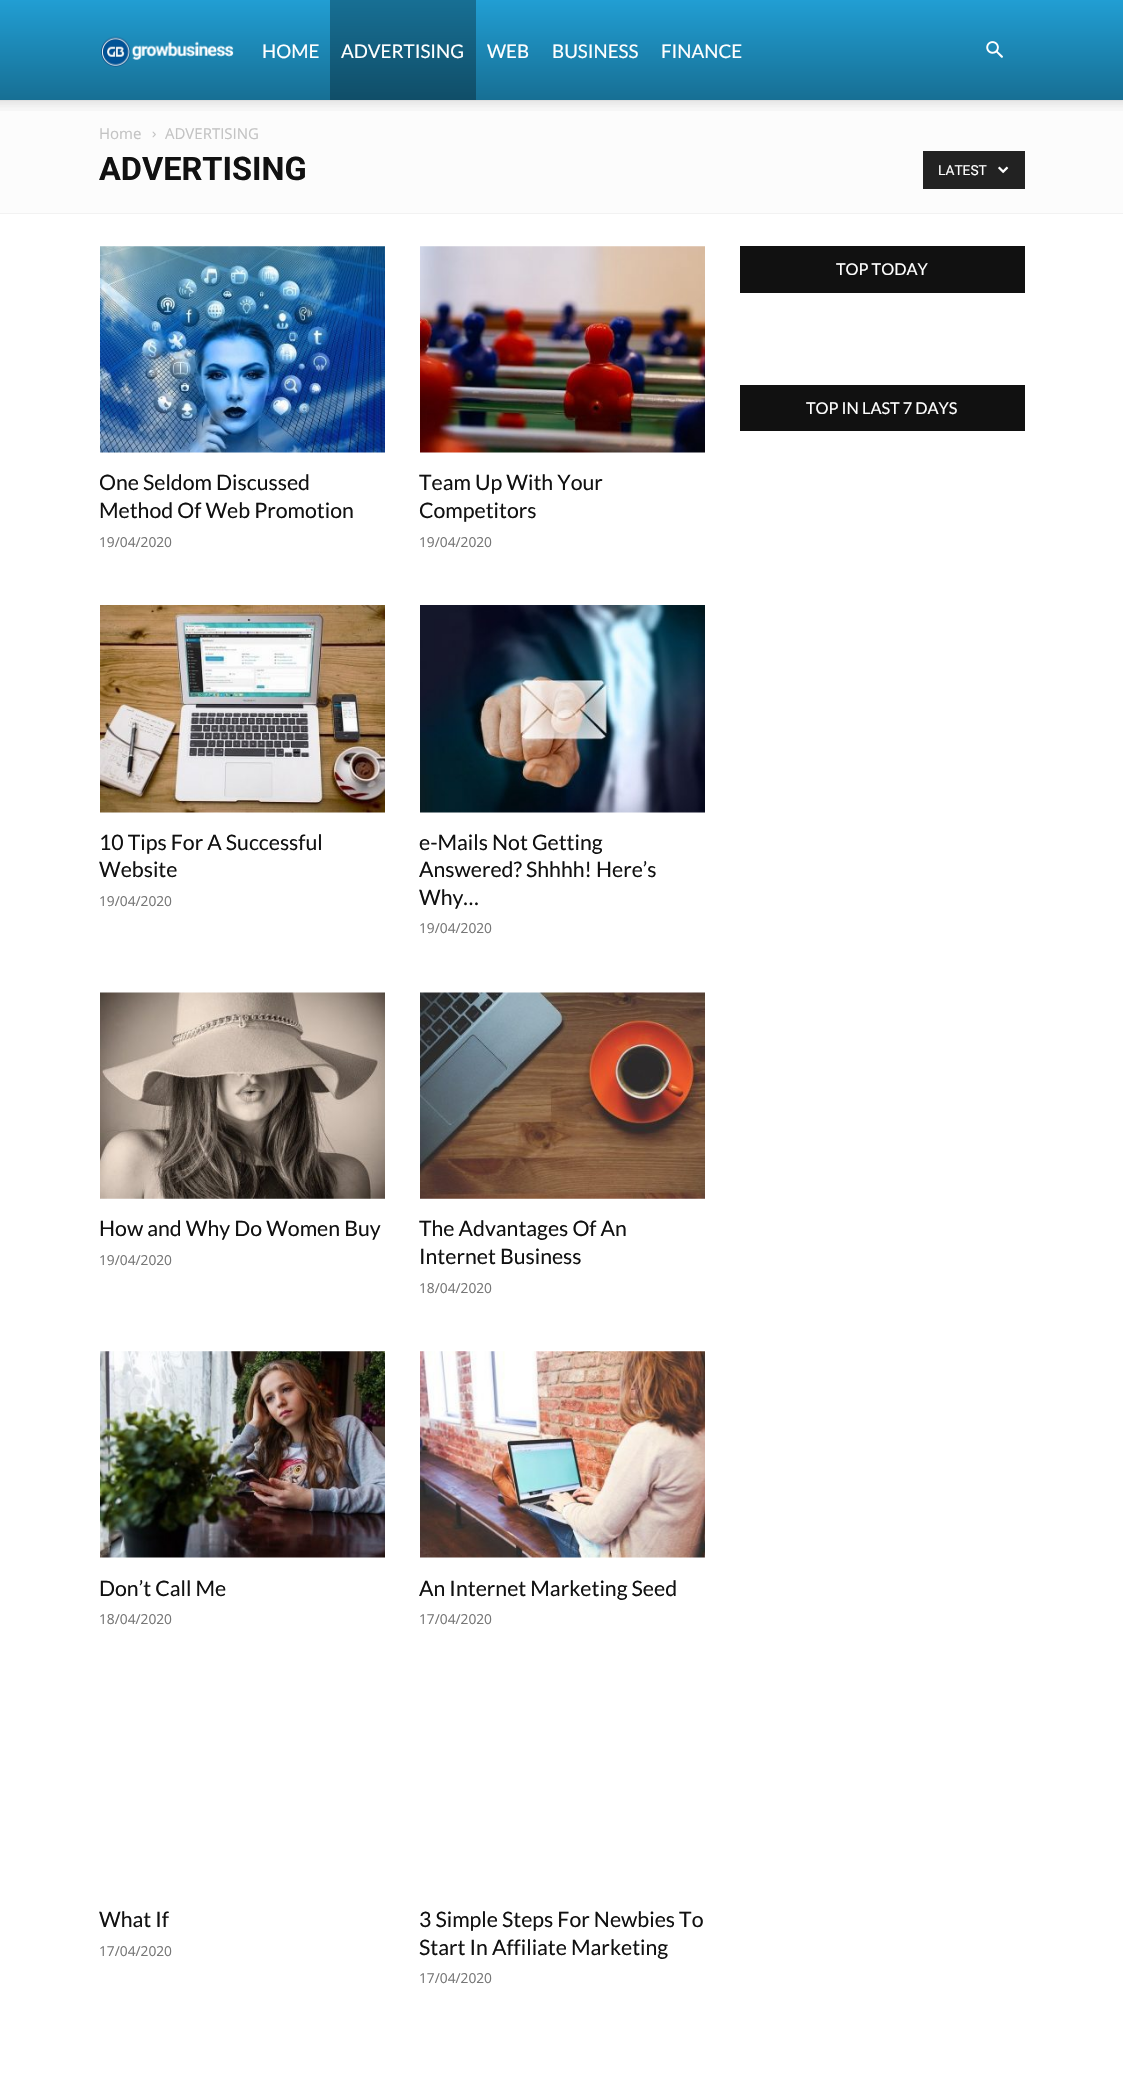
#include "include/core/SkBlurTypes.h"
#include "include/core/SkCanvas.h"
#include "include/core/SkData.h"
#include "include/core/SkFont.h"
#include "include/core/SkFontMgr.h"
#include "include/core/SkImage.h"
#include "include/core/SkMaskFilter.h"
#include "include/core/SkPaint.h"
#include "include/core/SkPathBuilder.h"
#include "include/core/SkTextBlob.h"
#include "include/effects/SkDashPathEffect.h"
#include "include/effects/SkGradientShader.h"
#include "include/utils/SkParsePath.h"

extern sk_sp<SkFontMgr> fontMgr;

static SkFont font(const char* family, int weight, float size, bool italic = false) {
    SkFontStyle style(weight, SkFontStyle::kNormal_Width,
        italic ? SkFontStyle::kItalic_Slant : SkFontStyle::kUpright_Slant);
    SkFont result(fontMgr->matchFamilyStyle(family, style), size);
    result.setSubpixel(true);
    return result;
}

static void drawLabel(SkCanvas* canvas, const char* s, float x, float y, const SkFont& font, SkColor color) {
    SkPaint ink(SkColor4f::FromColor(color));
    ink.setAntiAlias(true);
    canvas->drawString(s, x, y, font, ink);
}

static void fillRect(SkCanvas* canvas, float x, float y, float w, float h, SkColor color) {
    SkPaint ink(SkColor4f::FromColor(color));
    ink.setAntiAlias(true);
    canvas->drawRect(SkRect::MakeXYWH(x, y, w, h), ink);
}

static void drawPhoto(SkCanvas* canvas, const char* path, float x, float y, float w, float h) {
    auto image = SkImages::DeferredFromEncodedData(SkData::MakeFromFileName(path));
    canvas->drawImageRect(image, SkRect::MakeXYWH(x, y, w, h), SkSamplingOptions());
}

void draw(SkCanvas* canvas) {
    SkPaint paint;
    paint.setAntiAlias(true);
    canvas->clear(0xFFFFFFFF);
    {
        const SkColor colors[] = {0xFF219ED3, 0xFF176F94};
        const float stops[] = {0, 1};
        const SkPoint ends[] = {{562, 0}, {562, 100}};
        paint.setShader(SkGradientShader::MakeLinear(ends, colors, stops, 2, SkTileMode::kClamp));
        paint.setAlpha(255);
    }
    canvas->drawRect(SkRect::MakeXYWH(0, 0, 1123, 100), paint);
    {
        const SkColor colors[] = {0xFF176F94, 0xFF104E68};
        const float stops[] = {0, 1};
        const SkPoint ends[] = {{562, 0}, {562, 100}};
        paint.setShader(SkGradientShader::MakeLinear(ends, colors, stops, 2, SkTileMode::kClamp));
        paint.setAlpha(255);
    }
    canvas->drawRect(SkRect::MakeXYWH(330, 0, 146, 100), paint);
    drawPhoto(canvas, "assets/img1.png", 101, 36, 133, 31);
    SkFont font1 = font("Lato", 400, 18.75f);
    drawLabel(canvas, "HOME", 262, 58, font1, 0xFFFFFFFF);
    drawLabel(canvas, "ADVERTISING", 341, 58, font1, 0xFFFFFFFF);
    drawLabel(canvas, "WEB", 487, 58, font1, 0xFFFFFFFF);
    drawLabel(canvas, "BUSINESS", 552, 58, font1, 0xFFFFFFFF);
    drawLabel(canvas, "FINANCE", 661, 58, font1, 0xFFFFFFFF);
    drawPhoto(canvas, "assets/img2.png", 986, 41, 17, 17);
    fillRect(canvas, 0, 101, 1123, 112, 0xFFFCFCFC);
    fillRect(canvas, 0, 100, 1123, 1, 0xFFF2F2F2);
    drawPhoto(canvas, "assets/img3.png", 0, 100, 1123, 11);
    fillRect(canvas, 0, 213, 1123, 1, 0xFFF2F2F2);
    SkFont font2 = font("Open Sans", 400, 15);
    drawLabel(canvas, "Home", 99, 139, font2, 0xFFC3C3C3);
    drawPhoto(canvas, "assets/img4.png", 152, 131, 4, 7);
    drawLabel(canvas, "ADVERTISING", 165, 139, font2, 0xFFC3C3C3);
    SkFont font3 = font("Roboto", 700, 32.5f);
    drawLabel(canvas, "ADVERTISING", 99, 180, font3, 0xFF111111);
    fillRect(canvas, 923, 151, 102, 38, 0xFF222222);
    SkFont font4 = font("Roboto", 400, 13.75f);
    drawLabel(canvas, "LATEST", 938, 175, font4, 0xFFFFFFFF);
    drawPhoto(canvas, "assets/img5.png", 998, 166, 11, 8);
    fillRect(canvas, 740, 246, 285, 47, 0xFF111111);
    SkFont font5 = font("Lato", 400, 16.25f);
    drawLabel(canvas, "TOP TODAY", 836, 275, font5, 0xFFFFFFFF);
    fillRect(canvas, 740, 385, 285, 46, 0xFF111111);
    drawLabel(canvas, "TOP IN LAST 7 DAYS", 806, 414, font5, 0xFFFFFFFF);
    drawPhoto(canvas, "assets/img6.png", 100, 246, 285, 207);
    SkFont font6 = font("Lato", 400, 21.25f);
    drawLabel(canvas, "One Seldom Discussed", 99, 490, font6, 0xFF111111);
    drawLabel(canvas, "Method Of Web Promotion", 99, 518, font6, 0xFF111111);
    SkFont font7 = font("Open Sans", 400, 13.75f);
    drawLabel(canvas, "19/04/2020", 99, 547, font7, 0xFF767676);
    drawPhoto(canvas, "assets/img7.png", 420, 246, 285, 207);
    drawLabel(canvas, "Team Up With Your", 419, 490, font6, 0xFF111111);
    drawLabel(canvas, "Competitors", 419, 518, font6, 0xFF111111);
    drawLabel(canvas, "19/04/2020", 419, 547, font7, 0xFF767676);
    drawPhoto(canvas, "assets/img8.png", 100, 605, 285, 208);
    drawLabel(canvas, "10 Tips For A Successful", 99, 850, font6, 0xFF111111);
    drawLabel(canvas, "Website", 99, 877, font6, 0xFF111111);
    drawLabel(canvas, "19/04/2020", 99, 906, font7, 0xFF767676);
    drawPhoto(canvas, "assets/img9.png", 420, 605, 285, 208);
    drawLabel(canvas, "e-Mails Not Getting", 419, 850, font6, 0xFF111111);
    drawLabel(canvas, "Answered? Shhhh! Here’s", 419, 877, font6, 0xFF111111);
    drawLabel(canvas, "Why…", 419, 905, font6, 0xFF111111);
    drawLabel(canvas, "19/04/2020", 419, 933, font7, 0xFF767676);
    drawPhoto(canvas, "assets/img10.png", 100, 992, 285, 207);
    drawLabel(canvas, "How and Why Do Women Buy", 99, 1236, font6, 0xFF111111);
    drawLabel(canvas, "19/04/2020", 99, 1265, font7, 0xFF767676);
    drawPhoto(canvas, "assets/img11.png", 420, 992, 285, 207);
    drawLabel(canvas, "The Advantages Of An", 419, 1236, font6, 0xFF111111);
    drawLabel(canvas, "Internet Business", 419, 1264, font6, 0xFF111111);
    drawLabel(canvas, "18/04/2020", 419, 1293, font7, 0xFF767676);
    drawPhoto(canvas, "assets/img12.png", 100, 1351, 285, 207);
    drawLabel(canvas, "Don’t Call Me", 99, 1596, font6, 0xFF111111);
    drawLabel(canvas, "18/04/2020", 99, 1624, font7, 0xFF767676);
    drawPhoto(canvas, "assets/img13.png", 420, 1351, 285, 207);
    drawLabel(canvas, "An Internet Marketing Seed", 419, 1596, font6, 0xFF111111);
    drawLabel(canvas, "17/04/2020", 419, 1624, font7, 0xFF767676);
    drawLabel(canvas, "What If", 99, 1927, font6, 0xFF111111);
    drawLabel(canvas, "17/04/2020", 99, 1956, font7, 0xFF767676);
    drawLabel(canvas, "3 Simple Steps For Newbies To", 419, 1927, font6, 0xFF111111);
    drawLabel(canvas, "Start In Affiliate Marketing", 419, 1955, font6, 0xFF111111);
    drawLabel(canvas, "17/04/2020", 419, 1983, font7, 0xFF767676);
}
